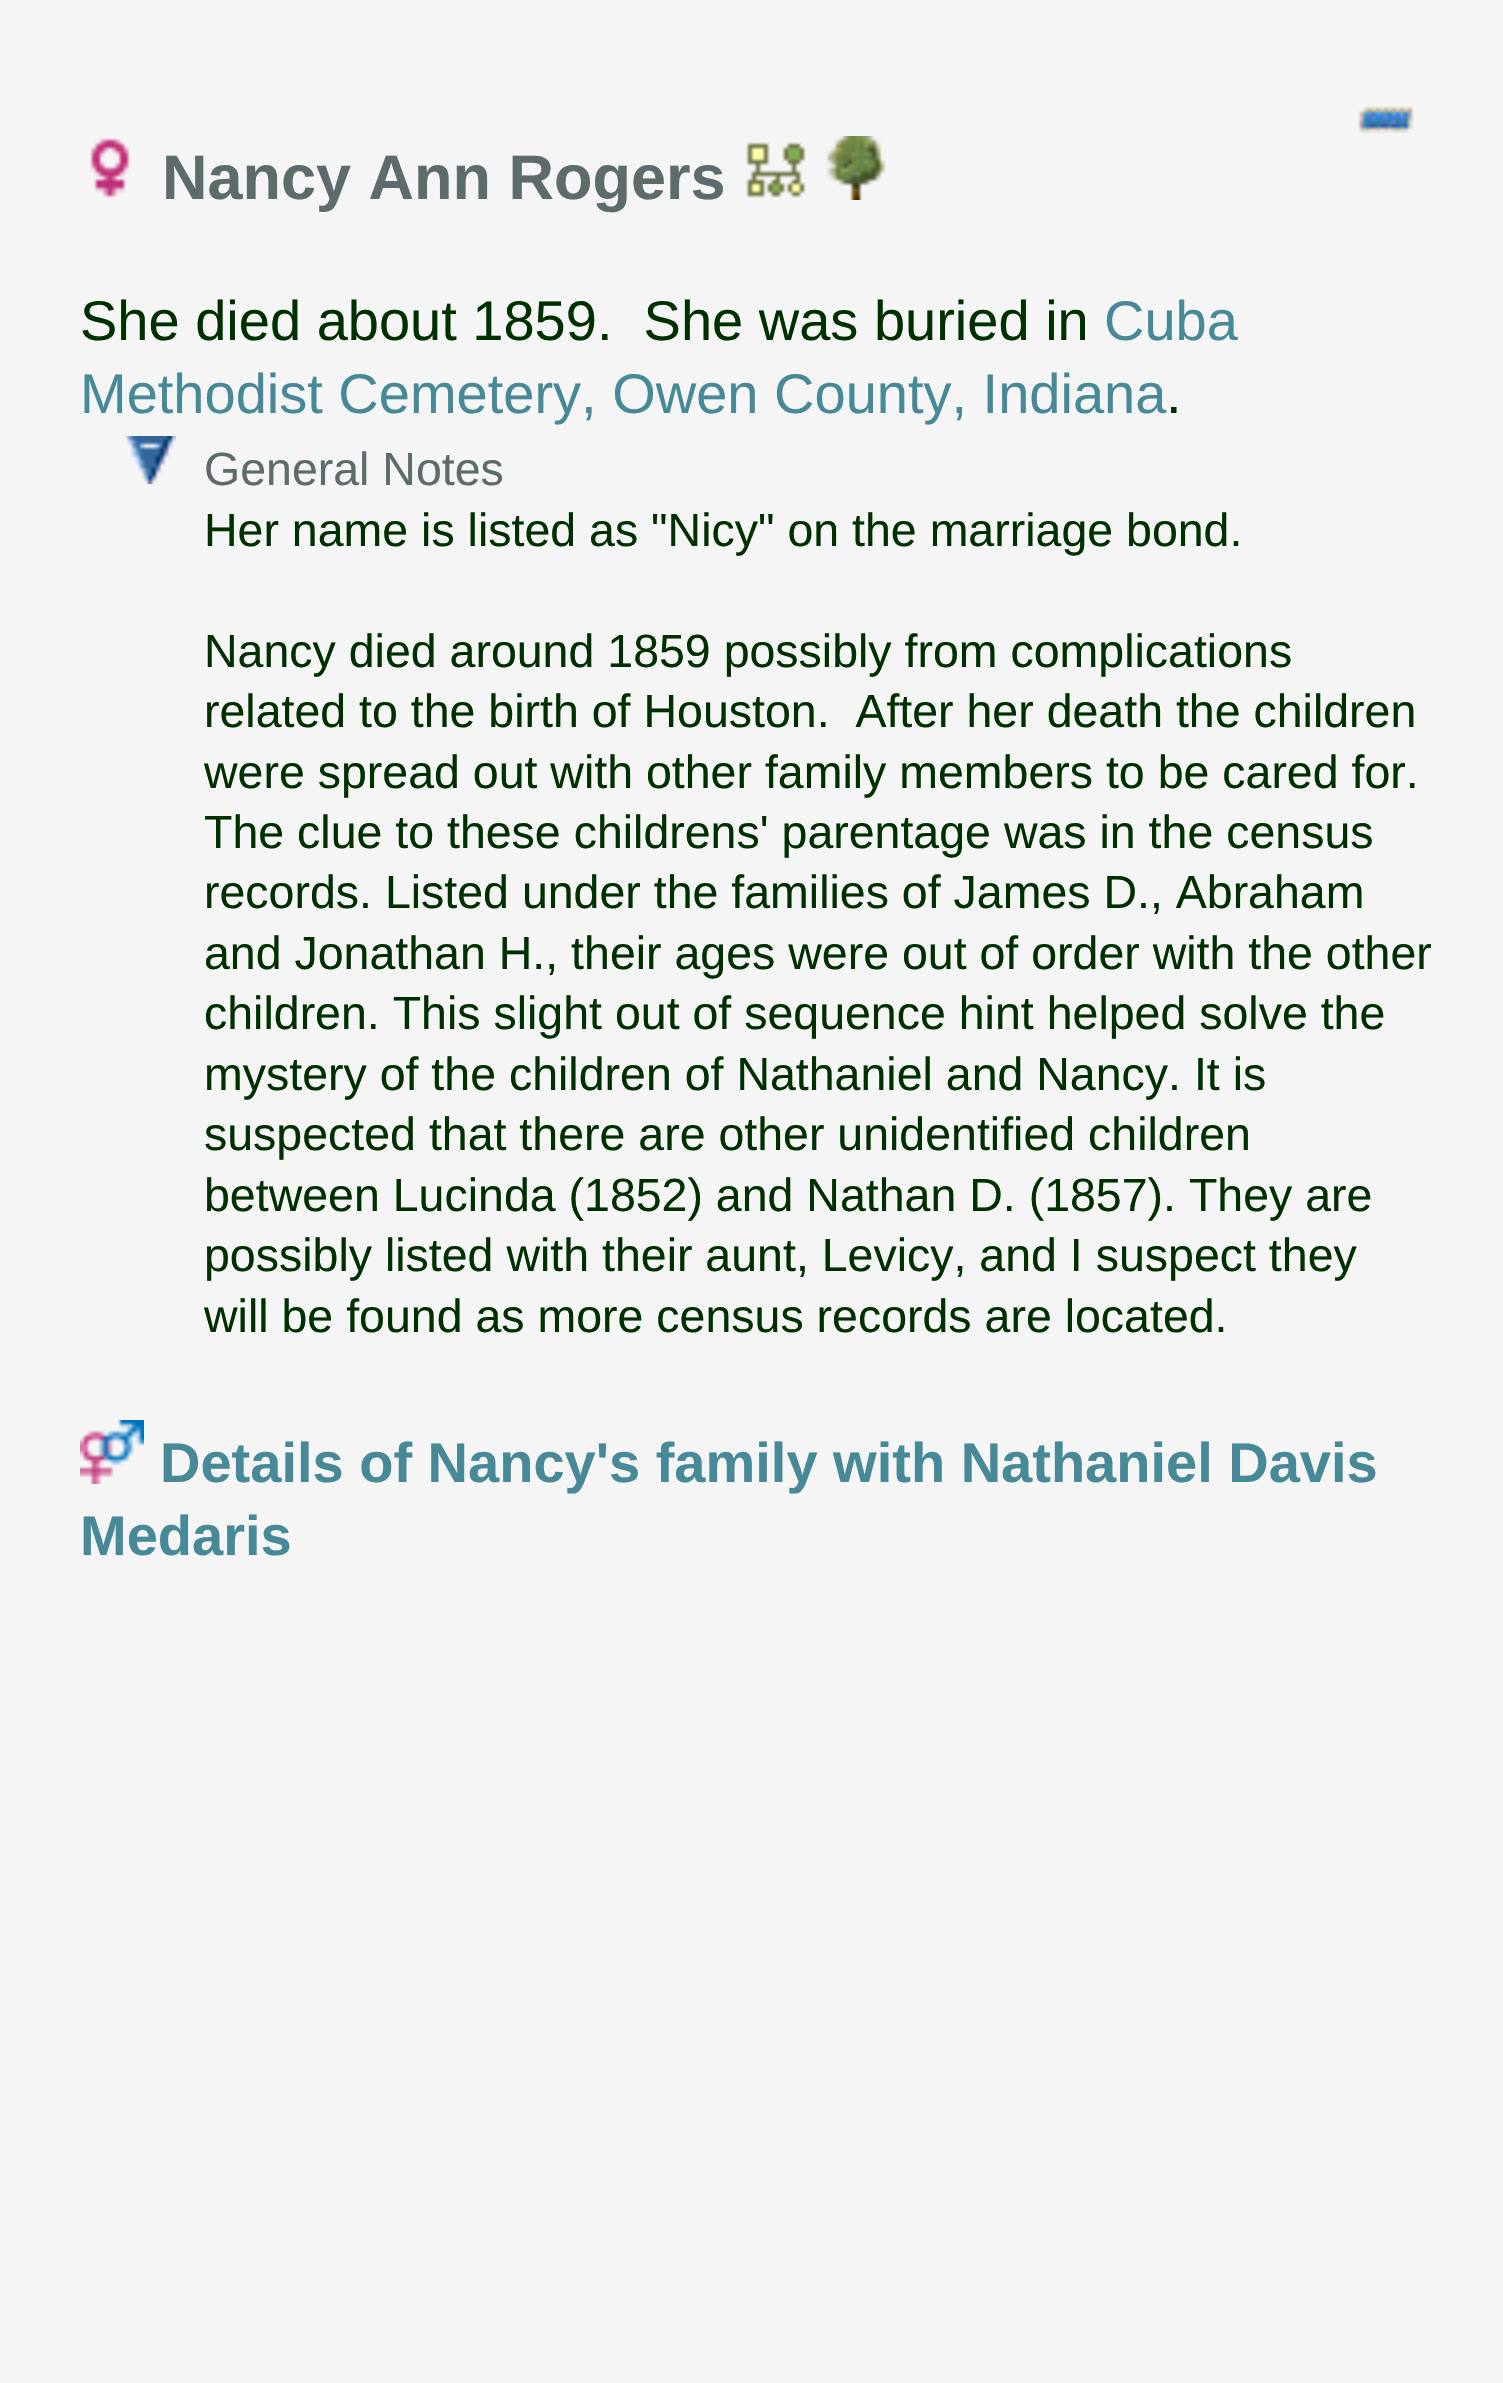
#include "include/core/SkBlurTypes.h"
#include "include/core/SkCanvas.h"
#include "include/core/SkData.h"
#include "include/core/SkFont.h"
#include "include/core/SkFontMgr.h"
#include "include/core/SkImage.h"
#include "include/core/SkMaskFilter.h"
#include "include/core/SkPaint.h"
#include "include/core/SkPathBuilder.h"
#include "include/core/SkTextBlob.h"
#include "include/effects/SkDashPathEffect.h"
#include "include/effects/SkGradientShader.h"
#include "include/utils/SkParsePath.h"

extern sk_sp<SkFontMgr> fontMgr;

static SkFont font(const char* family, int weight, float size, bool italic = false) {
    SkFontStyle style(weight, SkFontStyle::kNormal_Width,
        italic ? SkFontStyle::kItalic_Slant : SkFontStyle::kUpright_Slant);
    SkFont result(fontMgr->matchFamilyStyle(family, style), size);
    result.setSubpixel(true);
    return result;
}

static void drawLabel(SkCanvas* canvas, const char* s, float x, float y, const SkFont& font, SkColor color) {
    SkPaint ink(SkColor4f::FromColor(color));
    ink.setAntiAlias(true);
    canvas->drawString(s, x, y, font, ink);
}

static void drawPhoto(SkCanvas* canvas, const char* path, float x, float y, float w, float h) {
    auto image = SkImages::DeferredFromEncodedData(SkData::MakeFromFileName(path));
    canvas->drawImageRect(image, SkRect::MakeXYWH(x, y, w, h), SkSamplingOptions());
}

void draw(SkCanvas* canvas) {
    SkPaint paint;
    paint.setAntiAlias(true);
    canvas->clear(0xFFF5F5F5);
    drawPhoto(canvas, "assets/img1.png", 1358, 106, 56, 28);
    drawPhoto(canvas, "assets/img2.png", 90, 138, 40, 60);
    SkFont font1 = font("Liberation Sans", 700, 63);
    drawLabel(canvas, "Nancy Ann Rogers", 162, 199, font1, 0xFF5D6B6C);
    drawPhoto(canvas, "assets/img3.png", 746, 142, 60, 56);
    drawPhoto(canvas, "assets/img4.png", 826, 136, 60, 64);
    SkFont font2 = font("Liberation Sans", 400, 56);
    drawLabel(canvas, "She died about 1859.  She was buried in", 80, 340, font2, 0xFF003000);
    drawLabel(canvas, "Cuba", 1104, 340, font2, 0xFF478997);
    drawLabel(canvas, "Methodist Cemetery, Owen County, Indiana", 80, 413, font2, 0xFF478997);
    drawLabel(canvas, ".", 1166, 413, font2, 0xFF003000);
    drawPhoto(canvas, "assets/img5.png", 123, 436, 53, 48);
    SkFont font3 = font("Liberation Sans", 400, 46.5f);
    drawLabel(canvas, "General Notes", 204, 485, font3, 0xFF5D6B6C);
    drawLabel(canvas, "Her name is listed as \"Nicy\" on the marriage bond.", 204, 546, font3, 0xFF003000);
    drawLabel(canvas, "Nancy died around 1859 possibly from complications", 204, 667, font3, 0xFF003000);
    drawLabel(canvas, "related to the birth of Houston.  After her death the children", 204, 727, font3, 0xFF003000);
    drawLabel(canvas, "were spread out with other family members to be cared for.", 204, 788, font3, 0xFF003000);
    drawLabel(canvas, "The clue to these childrens' parentage was in the census", 204, 848, font3, 0xFF003000);
    drawLabel(canvas, "records. Listed under the families of James D., Abraham", 204, 908, font3, 0xFF003000);
    drawLabel(canvas, "and Jonathan H., their ages were out of order with the other", 204, 969, font3, 0xFF003000);
    drawLabel(canvas, "children. This slight out of sequence hint helped solve the", 204, 1029, font3, 0xFF003000);
    drawLabel(canvas, "mystery of the children of Nathaniel and Nancy. It is", 204, 1090, font3, 0xFF003000);
    drawLabel(canvas, "suspected that there are other unidentified children", 204, 1150, font3, 0xFF003000);
    drawLabel(canvas, "between Lucinda (1852) and Nathan D. (1857). They are", 204, 1211, font3, 0xFF003000);
    drawLabel(canvas, "possibly listed with their aunt, Levicy, and I suspect they", 204, 1271, font3, 0xFF003000);
    drawLabel(canvas, "will be found as more census records are located.", 204, 1332, font3, 0xFF003000);
    drawPhoto(canvas, "assets/img6.png", 80, 1420, 64, 64);
    SkFont font4 = font("Liberation Sans", 700, 56);
    drawLabel(canvas, "Details of Nancy's family with Nathaniel Davis", 160, 1482, font4, 0xFF478997);
    drawLabel(canvas, "Medaris", 80, 1555, font4, 0xFF478997);
}
